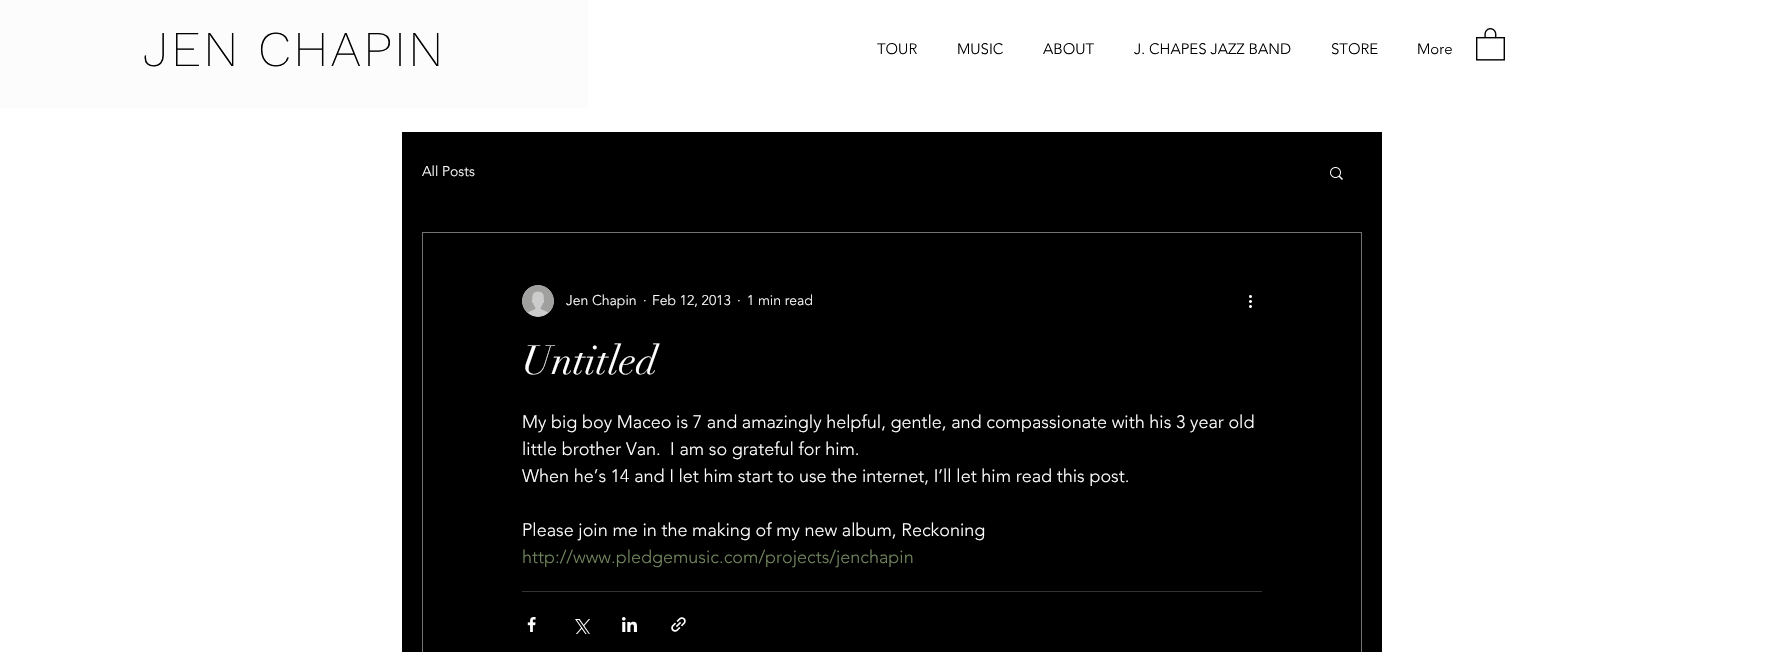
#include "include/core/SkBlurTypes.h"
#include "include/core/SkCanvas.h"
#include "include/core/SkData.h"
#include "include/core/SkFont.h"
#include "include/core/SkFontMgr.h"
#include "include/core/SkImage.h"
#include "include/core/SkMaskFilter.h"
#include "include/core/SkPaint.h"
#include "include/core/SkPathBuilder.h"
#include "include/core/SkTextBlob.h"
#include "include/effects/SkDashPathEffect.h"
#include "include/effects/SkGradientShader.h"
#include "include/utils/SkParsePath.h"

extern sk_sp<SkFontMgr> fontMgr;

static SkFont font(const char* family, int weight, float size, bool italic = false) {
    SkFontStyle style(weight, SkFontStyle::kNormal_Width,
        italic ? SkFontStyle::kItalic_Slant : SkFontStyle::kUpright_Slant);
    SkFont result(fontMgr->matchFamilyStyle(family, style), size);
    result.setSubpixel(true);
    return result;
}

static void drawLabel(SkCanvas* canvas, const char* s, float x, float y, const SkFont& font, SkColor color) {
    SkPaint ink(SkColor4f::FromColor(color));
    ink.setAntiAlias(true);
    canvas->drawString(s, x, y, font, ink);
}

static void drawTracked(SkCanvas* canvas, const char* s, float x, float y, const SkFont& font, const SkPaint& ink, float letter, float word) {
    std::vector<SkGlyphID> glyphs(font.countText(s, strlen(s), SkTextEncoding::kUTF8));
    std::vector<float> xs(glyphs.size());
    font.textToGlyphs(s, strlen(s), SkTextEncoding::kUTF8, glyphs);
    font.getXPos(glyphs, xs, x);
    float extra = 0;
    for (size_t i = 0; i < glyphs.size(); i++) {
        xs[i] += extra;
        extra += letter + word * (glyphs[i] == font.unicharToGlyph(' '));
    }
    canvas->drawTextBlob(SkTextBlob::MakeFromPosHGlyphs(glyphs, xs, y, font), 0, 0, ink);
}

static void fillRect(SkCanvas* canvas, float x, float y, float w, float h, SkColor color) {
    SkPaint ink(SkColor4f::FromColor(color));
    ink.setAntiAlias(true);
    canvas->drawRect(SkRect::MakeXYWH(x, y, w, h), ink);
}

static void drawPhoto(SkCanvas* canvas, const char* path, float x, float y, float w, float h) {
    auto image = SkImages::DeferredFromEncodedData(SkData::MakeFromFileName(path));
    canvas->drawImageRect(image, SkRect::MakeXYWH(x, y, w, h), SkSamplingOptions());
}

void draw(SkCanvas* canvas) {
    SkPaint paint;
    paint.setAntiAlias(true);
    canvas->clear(0xFFFFFFFF);
    fillRect(canvas, 0, 0, 588, 108, 0xFFFCFCFC);
    SkFont font1 = font("Work Sans", 200, 50);
    paint.setColor(0xFF000000);
    drawTracked(canvas, "JEN CHAPIN", 143, 66, font1, paint, 2.5f, 0);
    SkFont font2 = font("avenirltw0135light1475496", 300, 15);
    drawLabel(canvas, "TOUR", 877, 54, font2, 0xFF000000);
    drawLabel(canvas, "MUSIC", 957, 54, font2, 0xFF000000);
    drawLabel(canvas, "ABOUT", 1043, 54, font2, 0xFF000000);
    drawLabel(canvas, "J. CHAPES JAZZ BAND", 1134, 54, font2, 0xFF000000);
    drawLabel(canvas, "STORE", 1331, 54, font2, 0xFF000000);
    drawLabel(canvas, "More", 1417, 54, font2, 0xFF000000);
    drawPhoto(canvas, "assets/img1.png", 1476, 28, 29, 33);
    fillRect(canvas, 402, 132, 980, 520, 0xFF000000);
    SkFont font3 = font("avenirltw0135light1475496", 300, 14);
    drawLabel(canvas, "All Posts", 422, 176, font3, 0xFFFFFFFF);
    drawPhoto(canvas, "assets/img2.png", 1330, 167, 13, 13);
    paint.setStroke(true);
    paint.setStrokeWidth(1);
    paint.setColor(0xFF737371);
    canvas->drawRect(SkRect::MakeXYWH(422.5f, 232.5f, 939, 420), paint);
    drawPhoto(canvas, "assets/img3.png", 522, 285, 32, 32);
    drawLabel(canvas, "Jen Chapin", 566, 305, font3, 0xFFFFFFFF);
    drawLabel(canvas, "·", 643, 305, font3, 0xFFFFFFFF);
    drawLabel(canvas, "Feb 12, 2013", 652, 305, font3, 0xFFFFFFFF);
    drawLabel(canvas, "·", 737, 305, font3, 0xFFFFFFFF);
    drawLabel(canvas, "1 min read", 747, 305, font3, 0xFFFFFFFF);
    drawPhoto(canvas, "assets/img4.png", 1249, 295, 3, 13);
    SkFont font4 = font("didot", 400, 40);
    drawLabel(canvas, "Untitled", 522, 374, font4, 0xFFFFFFFF);
    SkFont font5 = font("avenirltw0135light1475496", 300, 18);
    drawLabel(canvas, "My big boy Maceo is 7 and amazingly helpful, gentle, and compassionate with his 3 year old", 522, 428, font5, 0xFFFFFFFF);
    drawLabel(canvas, "little brother Van.  I am so grateful for him.", 522, 455, font5, 0xFFFFFFFF);
    drawLabel(canvas, "When he’s 14 and I let him start to use the internet, I’ll let him read this post.", 522, 482, font5, 0xFFFFFFFF);
    drawLabel(canvas, "Please join me in the making of my new album, Reckoning", 522, 536, font5, 0xFFFFFFFF);
    drawLabel(canvas, "http://www.pledgemusic.com/projects/jenchapin", 522, 563, font5, 0xFF72865E);
    fillRect(canvas, 522, 591, 740, 1, 0xFF333333);
    drawPhoto(canvas, "assets/img5.png", 527, 617, 9, 15);
    drawPhoto(canvas, "assets/img6.png", 575, 619, 15, 15);
    drawPhoto(canvas, "assets/img7.png", 622, 617, 15, 15);
    drawPhoto(canvas, "assets/img8.png", 671, 617, 15, 15);
}
